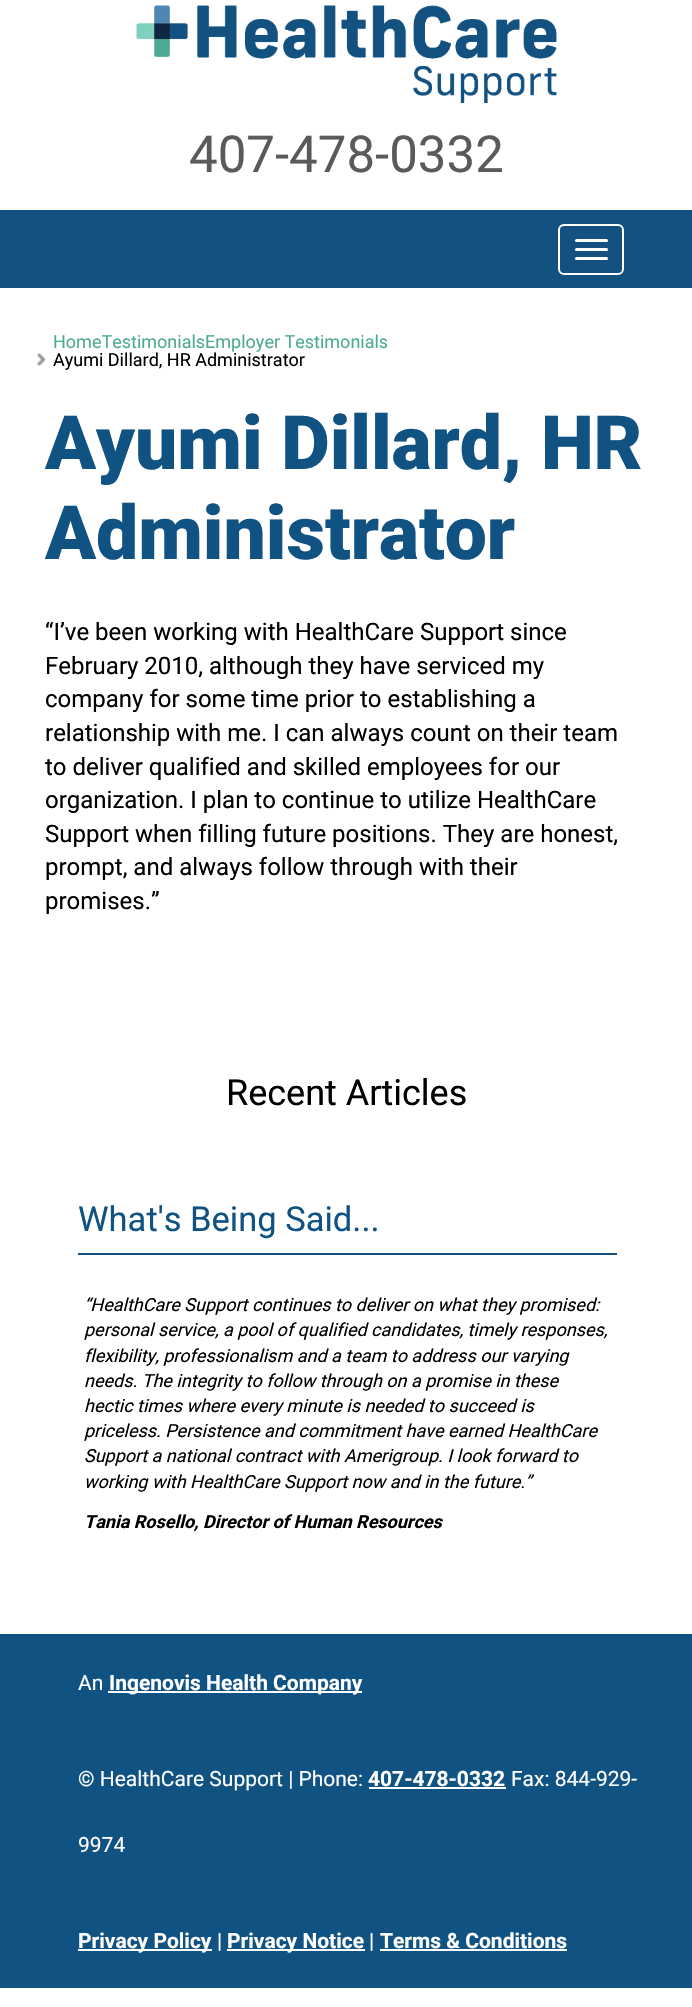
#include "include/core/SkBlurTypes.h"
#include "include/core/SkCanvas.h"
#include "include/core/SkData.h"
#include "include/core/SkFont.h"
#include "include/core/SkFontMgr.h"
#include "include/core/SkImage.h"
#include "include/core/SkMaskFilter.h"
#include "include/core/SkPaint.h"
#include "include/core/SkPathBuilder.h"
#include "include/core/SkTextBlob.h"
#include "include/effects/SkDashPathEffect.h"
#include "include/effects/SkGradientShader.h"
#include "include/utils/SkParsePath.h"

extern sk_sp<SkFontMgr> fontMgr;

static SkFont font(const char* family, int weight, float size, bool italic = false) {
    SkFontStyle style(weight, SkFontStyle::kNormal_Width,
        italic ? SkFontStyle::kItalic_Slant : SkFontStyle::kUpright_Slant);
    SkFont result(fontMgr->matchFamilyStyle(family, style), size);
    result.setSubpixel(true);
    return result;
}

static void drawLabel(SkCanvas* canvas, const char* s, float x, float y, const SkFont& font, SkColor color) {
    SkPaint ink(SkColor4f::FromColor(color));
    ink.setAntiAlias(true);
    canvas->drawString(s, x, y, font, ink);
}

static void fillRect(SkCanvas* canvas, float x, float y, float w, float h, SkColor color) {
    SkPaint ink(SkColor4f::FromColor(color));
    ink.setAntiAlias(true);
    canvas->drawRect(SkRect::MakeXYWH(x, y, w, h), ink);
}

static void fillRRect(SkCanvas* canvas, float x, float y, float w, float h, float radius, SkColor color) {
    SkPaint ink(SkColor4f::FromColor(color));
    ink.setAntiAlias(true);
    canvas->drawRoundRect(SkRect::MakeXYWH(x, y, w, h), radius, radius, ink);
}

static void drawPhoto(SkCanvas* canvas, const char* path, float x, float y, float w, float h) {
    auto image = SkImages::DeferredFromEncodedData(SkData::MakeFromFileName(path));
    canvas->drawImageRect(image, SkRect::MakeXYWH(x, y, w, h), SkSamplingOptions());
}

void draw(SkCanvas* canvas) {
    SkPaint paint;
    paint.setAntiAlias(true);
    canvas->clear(0xFFFFFFFF);
    drawPhoto(canvas, "assets/img1.png", 136, 5, 421, 98);
    SkFont font1 = font("Roboto", 400, 51);
    drawLabel(canvas, "407-478-0332", 189, 172, font1, 0xFF5A5A5C);
    fillRect(canvas, 0, 210, 692, 78, 0xFF125180);
    paint.setStroke(true);
    paint.setStrokeWidth(2);
    paint.setColor(0xFFFFFFFF);
    canvas->drawRoundRect(SkRect::MakeXYWH(559, 225, 64, 49), 5, 5, paint);
    fillRRect(canvas, 575, 239, 33, 3, 1.5f, 0xFFFFFFFF);
    fillRRect(canvas, 575, 248, 33, 3, 1.5f, 0xFFFFFFFF);
    fillRRect(canvas, 575, 257, 33, 3, 1.5f, 0xFFFFFFFF);
    SkFont font2 = font("Roboto", 400, 18);
    drawLabel(canvas, "HomeTestimonialsEmployer Testimonials", 53, 348, font2, 0xFF4DAB92);
    drawPhoto(canvas, "assets/img2.png", 37, 353, 8, 13);
    drawLabel(canvas, "Ayumi Dillard, HR Administrator", 53, 366, font2, 0xFF000000);
    SkFont font3 = font("Roboto", 900, 75);
    drawLabel(canvas, "Ayumi Dillard, HR", 45, 469, font3, 0xFF105282);
    drawLabel(canvas, "Administrator", 45, 559, font3, 0xFF105282);
    SkFont font4 = font("Roboto", 400, 24);
    drawLabel(canvas, "“I’ve been working with HealthCare Support since", 45, 640, font4, 0xFF000000);
    drawLabel(canvas, "February 2010, although they have serviced my", 45, 674, font4, 0xFF000000);
    drawLabel(canvas, "company for some time prior to establishing a", 45, 707, font4, 0xFF000000);
    drawLabel(canvas, "relationship with me. I can always count on their team", 45, 741, font4, 0xFF000000);
    drawLabel(canvas, "to deliver qualified and skilled employees for our", 45, 775, font4, 0xFF000000);
    drawLabel(canvas, "organization. I plan to continue to utilize HealthCare", 45, 808, font4, 0xFF000000);
    drawLabel(canvas, "Support when filling future positions. They are honest,", 45, 842, font4, 0xFF000000);
    drawLabel(canvas, "prompt, and always follow through with their", 45, 875, font4, 0xFF000000);
    drawLabel(canvas, "promises.”", 45, 909, font4, 0xFF000000);
    SkFont font5 = font("Roboto", 400, 36);
    drawLabel(canvas, "Recent Articles", 226, 1105, font5, 0xFF000000);
    fillRect(canvas, 78, 1253, 539, 2, 0xFF125180);
    SkFont font6 = font("Roboto", 400, 34.5f);
    drawLabel(canvas, "What's Being Said...", 78, 1231, font6, 0xFF105282);
    SkFont font7 = font("Roboto", 400, 18, true);
    drawLabel(canvas, "“HealthCare Support continues to deliver on what they promised:", 84, 1311, font7, 0xFF000000);
    drawLabel(canvas, "personal service, a pool of qualified candidates, timely responses,", 84, 1336, font7, 0xFF000000);
    drawLabel(canvas, "flexibility, professionalism and a team to address our varying", 84, 1362, font7, 0xFF000000);
    drawLabel(canvas, "needs. The integrity to follow through on a promise in these", 84, 1387, font7, 0xFF000000);
    drawLabel(canvas, "hectic times where every minute is needed to succeed is", 84, 1412, font7, 0xFF000000);
    drawLabel(canvas, "priceless. Persistence and commitment have earned HealthCare", 84, 1437, font7, 0xFF000000);
    drawLabel(canvas, "Support a national contract with Amerigroup. I look forward to", 84, 1462, font7, 0xFF000000);
    drawLabel(canvas, "working with HealthCare Support now and in the future.”", 84, 1488, font7, 0xFF000000);
    SkFont font8 = font("Roboto", 700, 18, true);
    drawLabel(canvas, "Tania Rosello, Director of Human Resources", 84, 1528, font8, 0xFF000000);
    fillRect(canvas, 0, 1634, 692, 354, 0xFF105282);
    SkFont font9 = font("Roboto", 400, 21);
    drawLabel(canvas, "An", 78, 1690, font9, 0xFFFFFFFF);
    fillRect(canvas, 108, 1691, 254, 2, 0xFFFFFFFF);
    SkFont font10 = font("Roboto", 700, 21);
    drawLabel(canvas, "Ingenovis Health Company", 109, 1690, font10, 0xFFFFFFFF);
    drawLabel(canvas, "© HealthCare Support | Phone:", 78, 1786, font9, 0xFFFFFFFF);
    drawLabel(canvas, "407-478-0332", 368, 1786, font10, 0xFFFFFFFF);
    fillRect(canvas, 369, 1787, 137, 2, 0xFFFFFFFF);
    drawLabel(canvas, "Fax: 844-929-", 511, 1786, font9, 0xFFFFFFFF);
    drawLabel(canvas, "9974", 78, 1852, font9, 0xFFFFFFFF);
    fillRect(canvas, 78, 1949, 134, 2, 0xFFFFFFFF);
    drawLabel(canvas, "Privacy Policy", 78, 1948, font10, 0xFFFFFFFF);
    drawLabel(canvas, "|", 217, 1948, font9, 0xFFFFFFFF);
    fillRect(canvas, 227, 1949, 138, 2, 0xFFFFFFFF);
    drawLabel(canvas, "Privacy Notice", 227, 1948, font10, 0xFFFFFFFF);
    drawLabel(canvas, "|", 369, 1948, font9, 0xFFFFFFFF);
    drawLabel(canvas, "Terms & Conditions", 380, 1948, font10, 0xFFFFFFFF);
    fillRect(canvas, 380, 1949, 187, 2, 0xFFFFFFFF);
}
